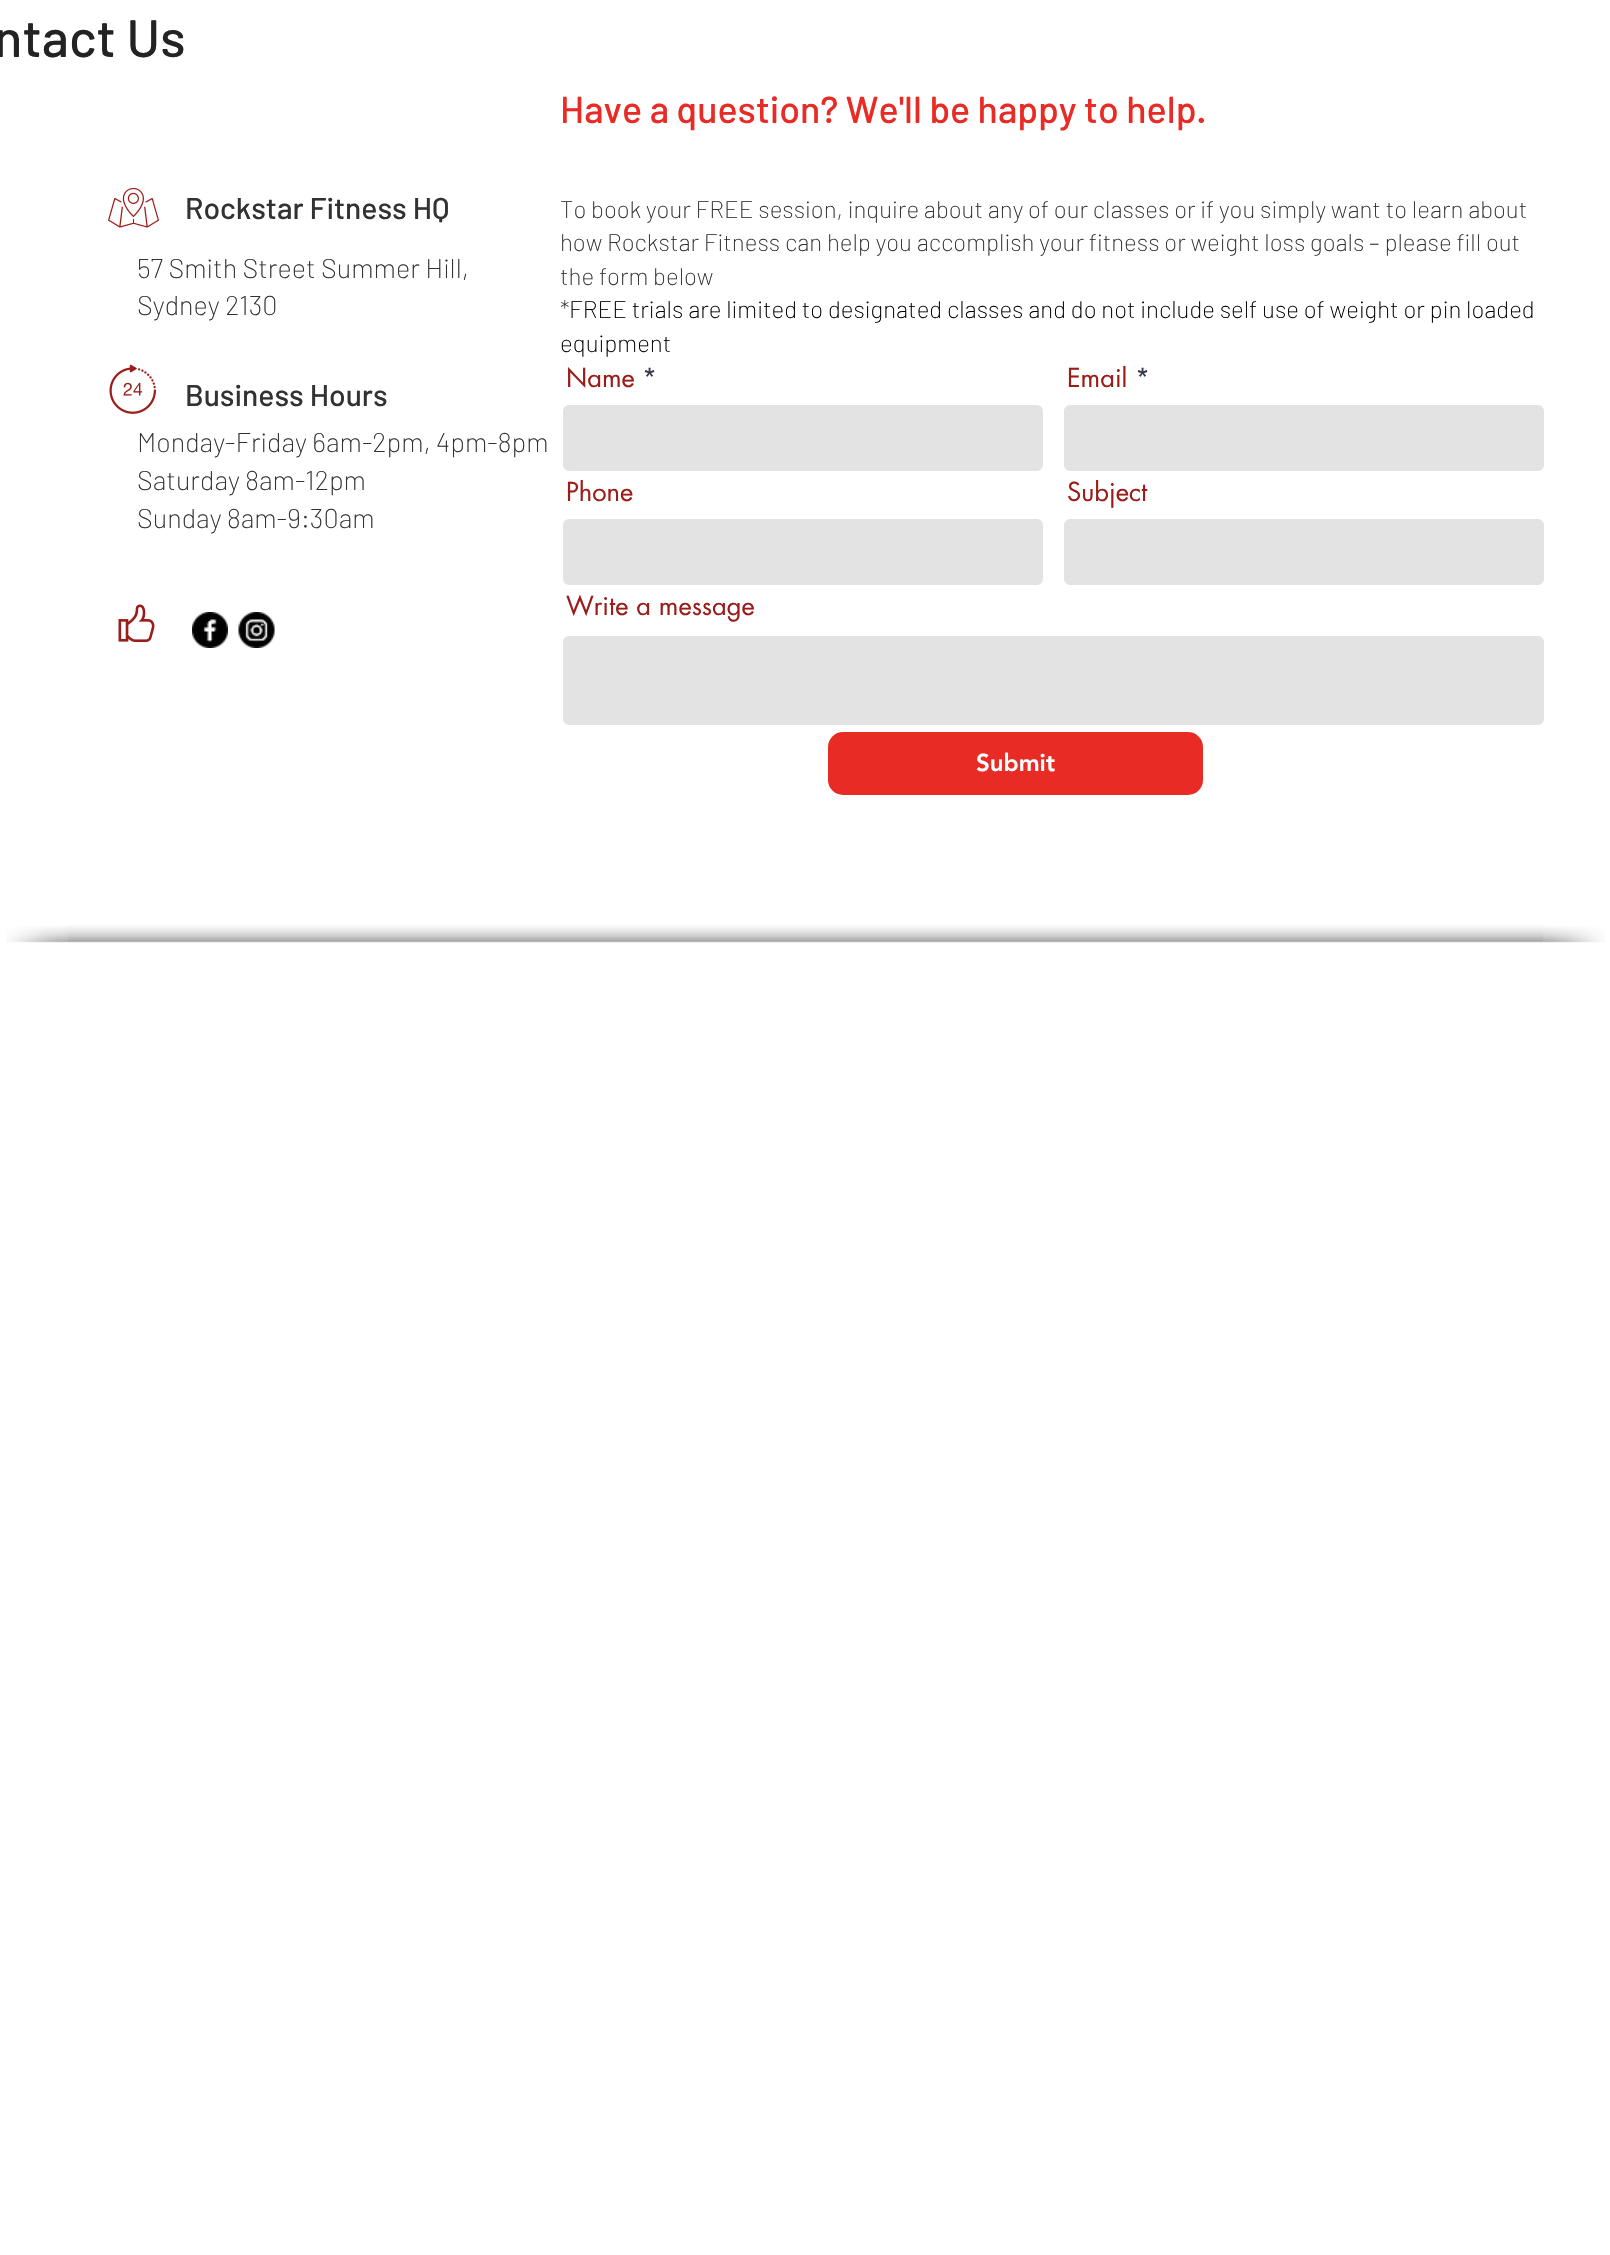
#include "include/core/SkBlurTypes.h"
#include "include/core/SkCanvas.h"
#include "include/core/SkData.h"
#include "include/core/SkFont.h"
#include "include/core/SkFontMgr.h"
#include "include/core/SkImage.h"
#include "include/core/SkMaskFilter.h"
#include "include/core/SkPaint.h"
#include "include/core/SkPathBuilder.h"
#include "include/core/SkTextBlob.h"
#include "include/effects/SkDashPathEffect.h"
#include "include/effects/SkGradientShader.h"
#include "include/utils/SkParsePath.h"

extern sk_sp<SkFontMgr> fontMgr;

static SkFont font(const char* family, int weight, float size, bool italic = false) {
    SkFontStyle style(weight, SkFontStyle::kNormal_Width,
        italic ? SkFontStyle::kItalic_Slant : SkFontStyle::kUpright_Slant);
    SkFont result(fontMgr->matchFamilyStyle(family, style), size);
    result.setSubpixel(true);
    return result;
}

static void drawLabel(SkCanvas* canvas, const char* s, float x, float y, const SkFont& font, SkColor color) {
    SkPaint ink(SkColor4f::FromColor(color));
    ink.setAntiAlias(true);
    canvas->drawString(s, x, y, font, ink);
}

static void fillRRect(SkCanvas* canvas, float x, float y, float w, float h, float radius, SkColor color) {
    SkPaint ink(SkColor4f::FromColor(color));
    ink.setAntiAlias(true);
    canvas->drawRoundRect(SkRect::MakeXYWH(x, y, w, h), radius, radius, ink);
}

static void drawPhoto(SkCanvas* canvas, const char* path, float x, float y, float w, float h) {
    auto image = SkImages::DeferredFromEncodedData(SkData::MakeFromFileName(path));
    canvas->drawImageRect(image, SkRect::MakeXYWH(x, y, w, h), SkSamplingOptions());
}

void draw(SkCanvas* canvas) {
    SkPaint paint;
    paint.setAntiAlias(true);
    canvas->clear(0xFFFFFFFF);
    SkFont font1 = font("Barlow", 500, 52.5f);
    drawLabel(canvas, "ntact Us", -6, 57, font1, 0xFF242323);
    drawPhoto(canvas, "assets/img1.png", 108, 187, 51, 41);
    SkFont font2 = font("Barlow", 500, 30);
    drawLabel(canvas, "Rockstar Fitness HQ", 185, 219, font2, 0xFF323232);
    SkFont font3 = font("Barlow", 200, 27);
    drawLabel(canvas, "57 Smith Street Summer Hill,", 137, 278, font3, 0xFF323232);
    drawLabel(canvas, "Sydney 2130", 137, 315, font3, 0xFF323232);
    drawPhoto(canvas, "assets/img2.png", 109, 364, 47, 50);
    drawLabel(canvas, "Business Hours", 185, 406, font2, 0xFF323232);
    drawLabel(canvas, "Monday-Friday 6am-2pm, 4pm-8pm", 137, 452, font3, 0xFF323232);
    drawLabel(canvas, "Saturday 8am-12pm", 137, 490, font3, 0xFF323232);
    drawLabel(canvas, "Sunday 8am-9:30am", 137, 528, font3, 0xFF323232);
    drawPhoto(canvas, "assets/img3.png", 118, 604, 37, 38);
    drawPhoto(canvas, "assets/img4.png", 192, 612, 36, 36);
    drawPhoto(canvas, "assets/img5.png", 238, 612, 37, 36);
    SkFont font4 = font("Barlow", 500, 37.5f);
    drawLabel(canvas, "Have a question? We'll be happy to help.", 560, 123, font4, 0xFFE82C25);
    SkFont font5 = font("Barlow", 200, 24);
    drawLabel(canvas, "To book your FREE session, inquire about any of our classes or if you simply want to learn about", 560, 218, font5, 0xFF323232);
    drawLabel(canvas, "how Rockstar Fitness can help you accomplish your fitness or weight loss goals – please fill out", 560, 251, font5, 0xFF323232);
    drawLabel(canvas, "the form below", 560, 285, font5, 0xFF323232);
    drawLabel(canvas, "*", 560, 318, font5, 0xFF323232);
    drawLabel(canvas, "FREE trials are limited to designated classes and do not include self use of weight or pin loaded", 569, 318, font5, 0xFF000000);
    drawLabel(canvas, "equipment", 560, 352, font5, 0xFF000000);
    SkFont font6 = font("futura", 400, 25.5f);
    drawLabel(canvas, "Name", 566, 387, font6, 0xFF9B1D19);
    drawLabel(canvas, "*", 642, 387, font6, 0xFF373B4D);
    paint.setColor(0xFFE3E3E3);
    canvas->drawRoundRect(SkRect::MakeXYWH(564, 406, 478, 64), 5, 5, paint);
    paint.setStroke(true);
    paint.setStrokeWidth(2);
    canvas->drawRoundRect(SkRect::MakeXYWH(564, 406, 478, 64), 5, 5, paint);
    drawLabel(canvas, "Email", 1067, 387, font6, 0xFF9B1D19);
    drawLabel(canvas, "*", 1135, 387, font6, 0xFF373B4D);
    paint.setStroke(false);
    canvas->drawRoundRect(SkRect::MakeXYWH(1065, 406, 478, 64), 5, 5, paint);
    paint.setStroke(true);
    canvas->drawRoundRect(SkRect::MakeXYWH(1065, 406, 478, 64), 5, 5, paint);
    drawLabel(canvas, "Phone", 566, 501, font6, 0xFF9B1D19);
    paint.setStroke(false);
    canvas->drawRoundRect(SkRect::MakeXYWH(564, 520, 478, 64), 5, 5, paint);
    paint.setStroke(true);
    canvas->drawRoundRect(SkRect::MakeXYWH(564, 520, 478, 64), 5, 5, paint);
    drawLabel(canvas, "Subject", 1067, 501, font6, 0xFF9B1D19);
    paint.setStroke(false);
    canvas->drawRoundRect(SkRect::MakeXYWH(1065, 520, 478, 64), 5, 5, paint);
    paint.setStroke(true);
    canvas->drawRoundRect(SkRect::MakeXYWH(1065, 520, 478, 64), 5, 5, paint);
    drawLabel(canvas, "Write a message", 566, 615, font6, 0xFF9B1D19);
    paint.setStroke(false);
    canvas->drawRoundRect(SkRect::MakeXYWH(564, 637, 979, 87), 5, 5, paint);
    paint.setStroke(true);
    canvas->drawRoundRect(SkRect::MakeXYWH(564, 637, 979, 87), 5, 5, paint);
    fillRRect(canvas, 828, 732, 375, 63, 15, 0xFFE82C25);
    SkFont font7 = font("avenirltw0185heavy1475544", 900, 24);
    drawLabel(canvas, "Submit", 976, 771, font7, 0xFFFFFFFF);
    drawPhoto(canvas, "assets/img6.png", 67, 925, 1477, 18);
    drawPhoto(canvas, "assets/img7.png", 6, 926, 62, 17);
    drawPhoto(canvas, "assets/img8.png", 1543, 926, 62, 17);
}
